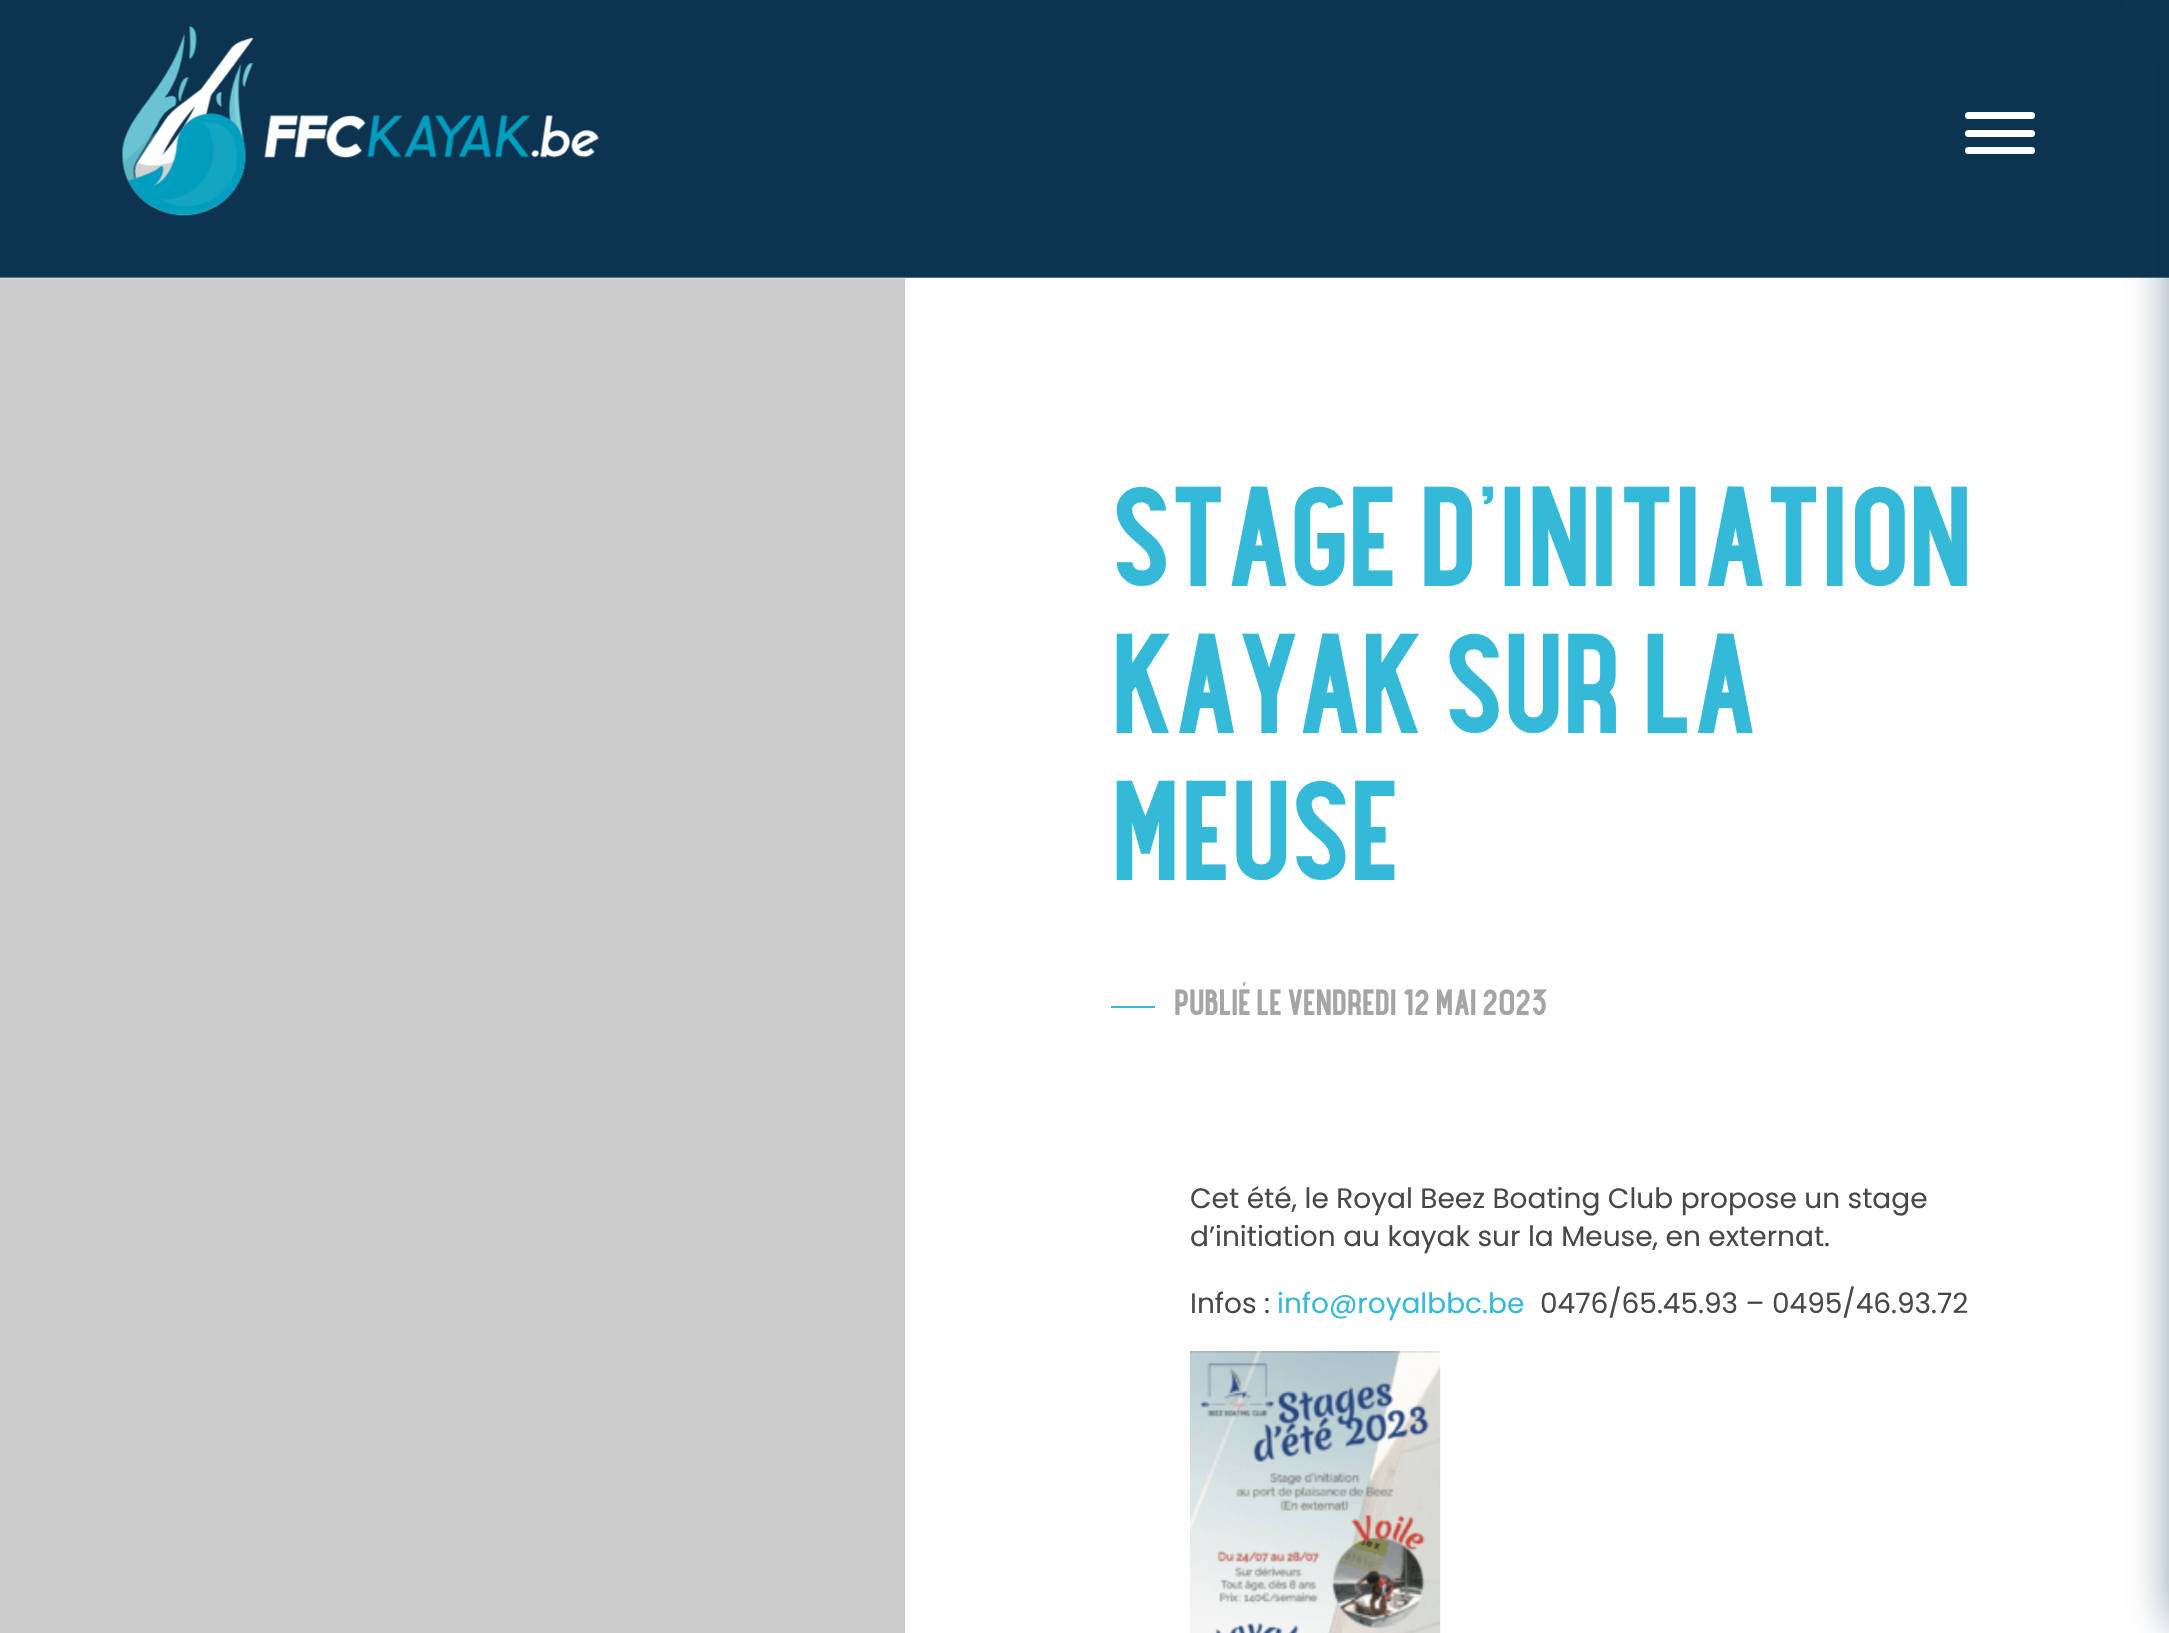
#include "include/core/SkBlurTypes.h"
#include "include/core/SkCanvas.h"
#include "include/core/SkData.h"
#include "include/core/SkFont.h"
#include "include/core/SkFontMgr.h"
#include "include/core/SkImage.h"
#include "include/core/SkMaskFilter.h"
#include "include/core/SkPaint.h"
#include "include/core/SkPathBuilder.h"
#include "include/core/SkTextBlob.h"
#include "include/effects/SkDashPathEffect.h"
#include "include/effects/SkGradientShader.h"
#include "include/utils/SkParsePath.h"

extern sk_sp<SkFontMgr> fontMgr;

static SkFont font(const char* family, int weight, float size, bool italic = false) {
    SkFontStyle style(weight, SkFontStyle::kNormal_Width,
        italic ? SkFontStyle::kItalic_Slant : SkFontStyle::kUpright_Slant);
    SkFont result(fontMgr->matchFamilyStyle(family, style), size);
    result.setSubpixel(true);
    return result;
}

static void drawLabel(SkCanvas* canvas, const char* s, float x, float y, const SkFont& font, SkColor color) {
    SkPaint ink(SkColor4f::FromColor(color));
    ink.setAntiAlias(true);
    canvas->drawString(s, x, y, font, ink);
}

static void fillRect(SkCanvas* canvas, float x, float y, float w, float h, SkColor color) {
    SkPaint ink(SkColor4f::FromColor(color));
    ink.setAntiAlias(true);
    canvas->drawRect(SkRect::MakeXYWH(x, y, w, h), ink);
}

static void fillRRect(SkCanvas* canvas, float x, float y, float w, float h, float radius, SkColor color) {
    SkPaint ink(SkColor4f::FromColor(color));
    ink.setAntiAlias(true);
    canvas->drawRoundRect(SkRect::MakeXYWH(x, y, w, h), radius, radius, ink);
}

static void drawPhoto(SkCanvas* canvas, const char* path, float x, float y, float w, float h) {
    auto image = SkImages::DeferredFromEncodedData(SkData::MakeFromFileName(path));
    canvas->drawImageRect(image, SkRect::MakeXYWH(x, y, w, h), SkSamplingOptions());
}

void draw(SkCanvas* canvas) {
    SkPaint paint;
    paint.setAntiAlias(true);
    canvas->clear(0xFFFFFFFF);
    fillRect(canvas, 0, 0, 2169, 277, 0xFF0C3450);
    fillRect(canvas, 0, 277, 2169, 1, 0xFF557185);
    drawPhoto(canvas, "assets/img1.png", 122, 26, 477, 190);
    fillRRect(canvas, 1965, 130, 70, 7, 3.5f, 0xFFFFFFFF);
    fillRRect(canvas, 1965, 112, 70, 7, 3.5f, 0xFFFFFFFF);
    fillRRect(canvas, 1965, 147, 70, 7, 3.5f, 0xFFFFFFFF);
    paint.setColor(0x990C3450);
    paint.setMaskFilter(SkMaskFilter::MakeBlur(kNormal_SkBlurStyle, 23.5f));
    canvas->drawRect(SkRect::MakeXYWH(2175, 11, 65, 1613), paint);
    paint.setMaskFilter(nullptr);
    fillRect(canvas, 0, 279, 905, 1354, 0xFFCCCCCC);
    fillRect(canvas, 0, 278, 905, 1, 0xFFDBDBDB);
    SkFont font1 = font("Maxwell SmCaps", 700, 122.5f);
    drawLabel(canvas, "STAGE D’INITIATION", 1111, 586, font1, 0xFF34B9D8);
    drawLabel(canvas, "KAYAK SUR LA", 1111, 733, font1, 0xFF34B9D8);
    drawLabel(canvas, "MEUSE", 1111, 880, font1, 0xFF34B9D8);
    fillRect(canvas, 1111, 1006, 44, 2, 0xFF34B9D8);
    SkFont font2 = font("Maxwell SmCaps", 700, 31.5f);
    drawLabel(canvas, "PUBLIÉ LE VENDREDI 12 MAI 2023", 1174, 1015, font2, 0xFFA5A5A5);
    SkFont font3 = font("Poppins", 400, 28);
    drawLabel(canvas, "Cet été, le Royal Beez Boating Club propose un stage", 1190, 1208, font3, 0xFF484848);
    drawLabel(canvas, "d’initiation au kayak sur la Meuse, en externat.", 1190, 1246, font3, 0xFF484848);
    drawLabel(canvas, "Infos :", 1190, 1313, font3, 0xFF484848);
    drawLabel(canvas, "info@royalbbc.be", 1277, 1313, font3, 0xFF34B9D8);
    drawLabel(canvas, "0476/65.45.93 – 0495/46.93.72", 1540, 1313, font3, 0xFF484848);
    drawPhoto(canvas, "assets/img2.png", 1190, 1351, 251, 282);
}
